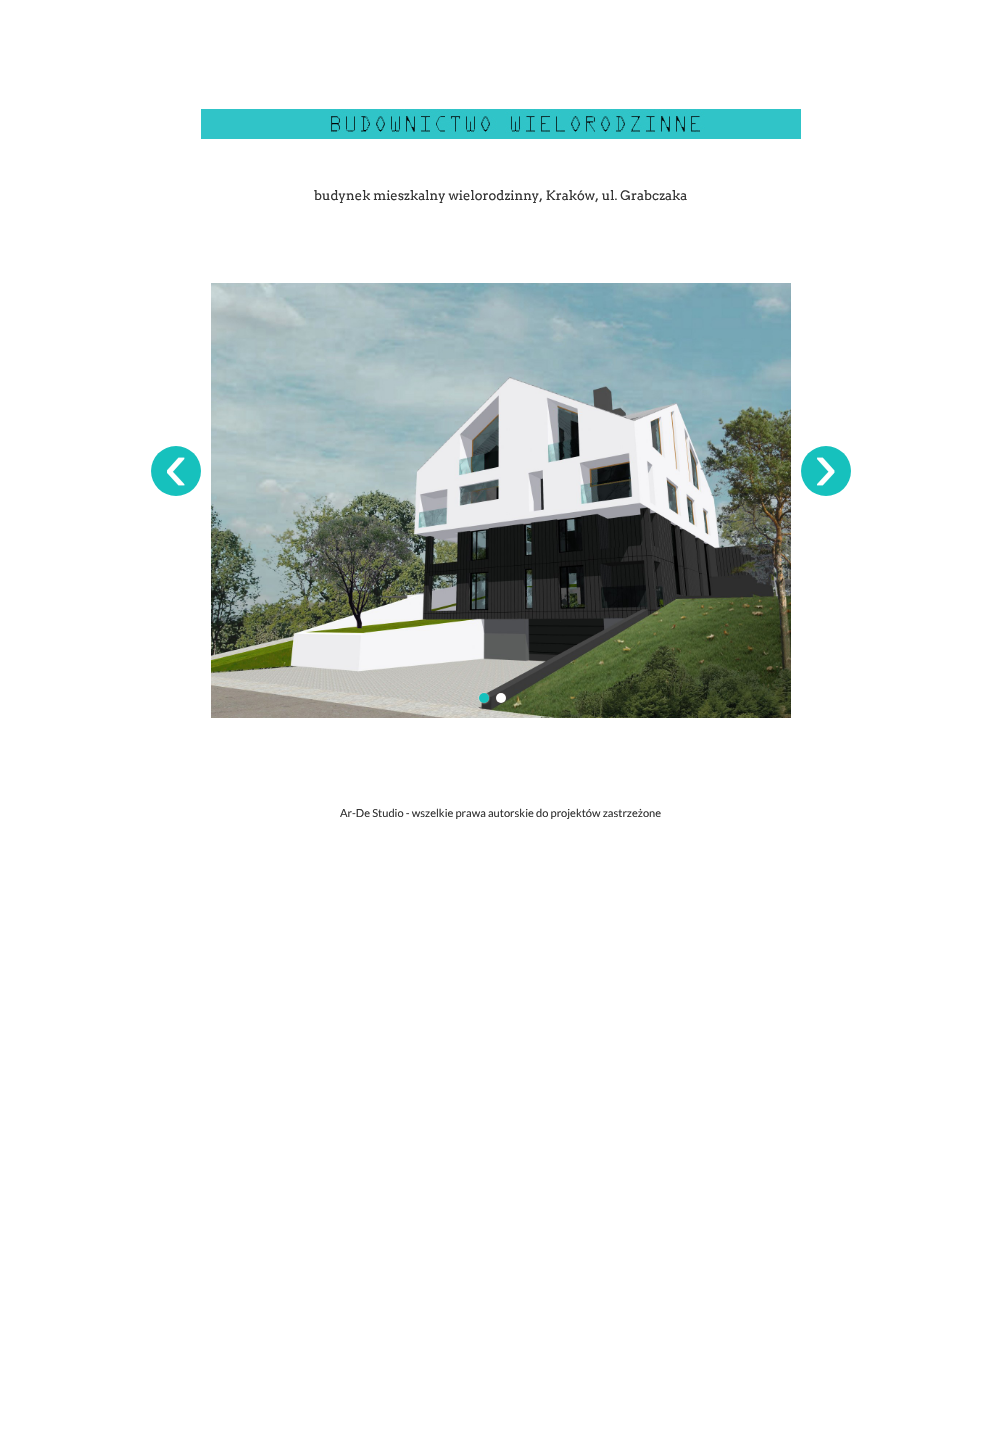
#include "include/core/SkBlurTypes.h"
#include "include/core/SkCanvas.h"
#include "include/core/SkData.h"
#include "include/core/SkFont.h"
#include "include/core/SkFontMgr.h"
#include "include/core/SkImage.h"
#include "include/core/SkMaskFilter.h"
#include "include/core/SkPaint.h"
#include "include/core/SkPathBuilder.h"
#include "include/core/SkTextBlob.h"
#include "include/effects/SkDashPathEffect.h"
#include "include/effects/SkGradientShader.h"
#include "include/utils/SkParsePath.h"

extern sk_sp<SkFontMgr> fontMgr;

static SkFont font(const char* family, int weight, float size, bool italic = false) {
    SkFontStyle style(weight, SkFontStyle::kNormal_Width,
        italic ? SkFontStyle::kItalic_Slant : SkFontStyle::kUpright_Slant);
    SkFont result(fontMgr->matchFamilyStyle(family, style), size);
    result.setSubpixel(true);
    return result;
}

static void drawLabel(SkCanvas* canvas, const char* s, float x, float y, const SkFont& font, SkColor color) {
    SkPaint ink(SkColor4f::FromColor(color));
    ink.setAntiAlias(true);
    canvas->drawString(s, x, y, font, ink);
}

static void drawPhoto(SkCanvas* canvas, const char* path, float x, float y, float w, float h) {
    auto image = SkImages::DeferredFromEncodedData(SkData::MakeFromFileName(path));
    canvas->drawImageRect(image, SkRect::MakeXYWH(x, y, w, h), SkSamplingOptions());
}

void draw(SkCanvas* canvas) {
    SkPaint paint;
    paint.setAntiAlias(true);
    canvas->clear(0xFFFFFFFF);
    drawPhoto(canvas, "assets/img1.png", 201, 109, 600, 30);
    SkFont font1 = font("Arvo", 400, 13);
    drawLabel(canvas, "budynek mieszkalny wielorodzinny, Kraków, ul. Grabczaka", 314, 200, font1, 0xFF333333);
    paint.setColor(0xFF16C1BD);
    canvas->drawCircle(176, 471, 25, paint);
    SkFont font2 = font("Liberation Sans", 400, 70);
    drawLabel(canvas, "‹", 164, 490, font2, 0xFFFFFFFF);
    drawPhoto(canvas, "assets/img2.png", 211, 283, 580, 435);
    canvas->drawCircle(826, 471, 25, paint);
    drawLabel(canvas, "›", 814, 490, font2, 0xFFFFFFFF);
    paint.setColor(0xFFF0EFE7);
    paint.setMaskFilter(SkMaskFilter::MakeBlur(kNormal_SkBlurStyle, 1));
    canvas->drawRoundRect(SkRect::MakeXYWH(479, 693, 10, 10), 5, 5, paint);
    paint.setMaskFilter(nullptr);
    paint.setColor(0xFF16C1BD);
    canvas->drawCircle(484, 698, 5, paint);
    paint.setColor(0xFF4E443C);
    paint.setMaskFilter(SkMaskFilter::MakeBlur(kNormal_SkBlurStyle, 1));
    canvas->drawRoundRect(SkRect::MakeXYWH(496, 693, 10, 10), 5, 5, paint);
    paint.setMaskFilter(nullptr);
    paint.setColor(0xFFFFFFFF);
    canvas->drawCircle(501, 698, 5, paint);
    SkFont font3 = font("Lato", 400, 11.1f);
    drawLabel(canvas, "Ar-De Studio - wszelkie prawa autorskie do projektów zastrzeżone", 340, 817, font3, 0xFF333333);
}
